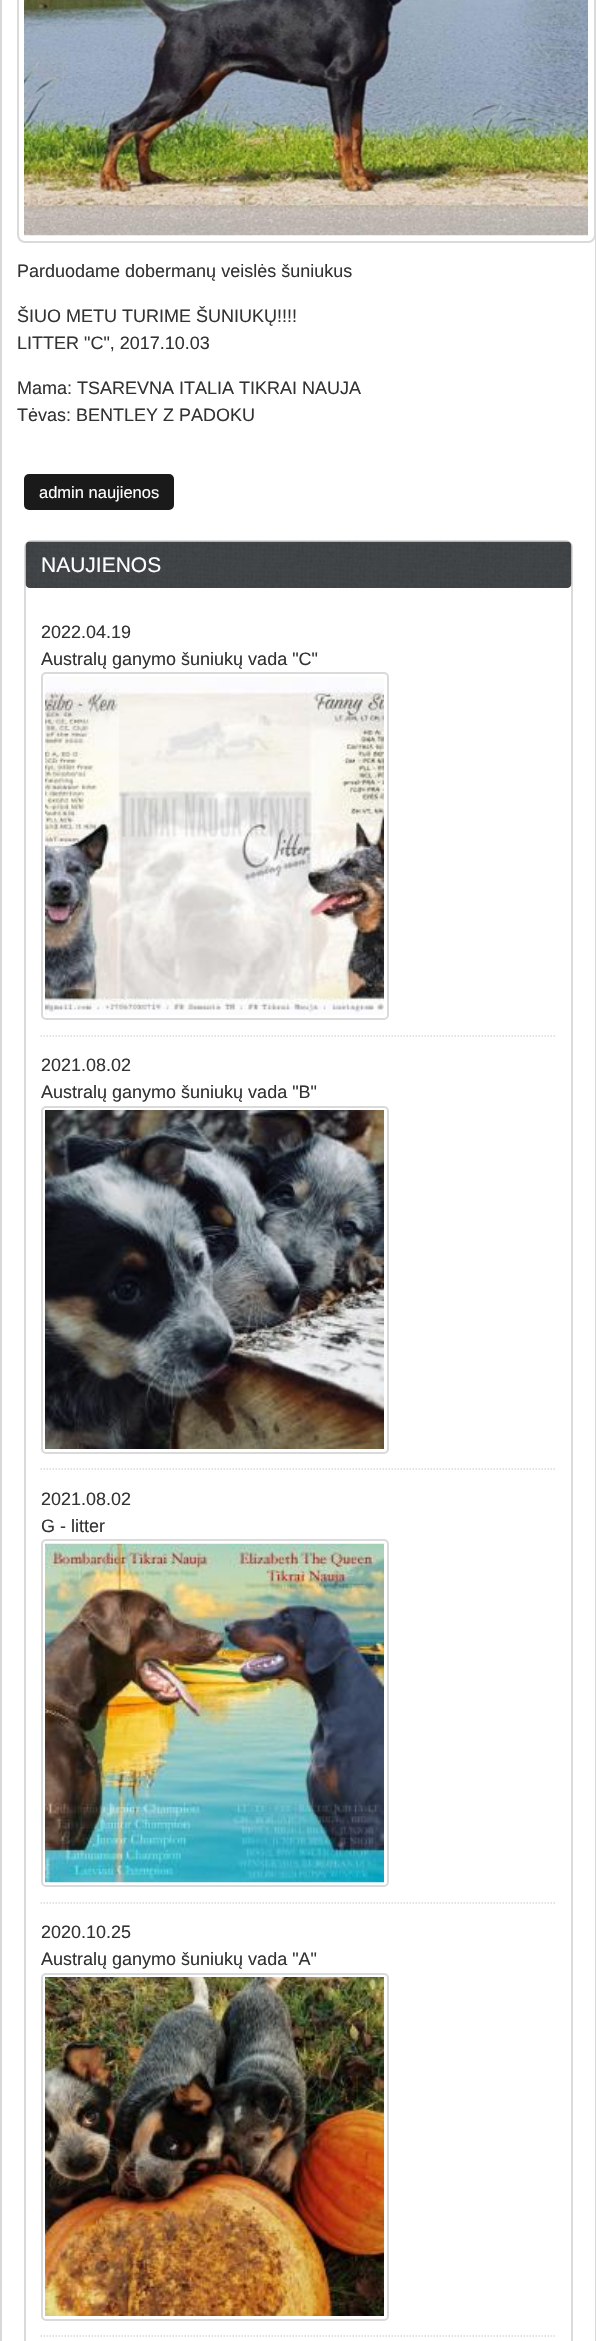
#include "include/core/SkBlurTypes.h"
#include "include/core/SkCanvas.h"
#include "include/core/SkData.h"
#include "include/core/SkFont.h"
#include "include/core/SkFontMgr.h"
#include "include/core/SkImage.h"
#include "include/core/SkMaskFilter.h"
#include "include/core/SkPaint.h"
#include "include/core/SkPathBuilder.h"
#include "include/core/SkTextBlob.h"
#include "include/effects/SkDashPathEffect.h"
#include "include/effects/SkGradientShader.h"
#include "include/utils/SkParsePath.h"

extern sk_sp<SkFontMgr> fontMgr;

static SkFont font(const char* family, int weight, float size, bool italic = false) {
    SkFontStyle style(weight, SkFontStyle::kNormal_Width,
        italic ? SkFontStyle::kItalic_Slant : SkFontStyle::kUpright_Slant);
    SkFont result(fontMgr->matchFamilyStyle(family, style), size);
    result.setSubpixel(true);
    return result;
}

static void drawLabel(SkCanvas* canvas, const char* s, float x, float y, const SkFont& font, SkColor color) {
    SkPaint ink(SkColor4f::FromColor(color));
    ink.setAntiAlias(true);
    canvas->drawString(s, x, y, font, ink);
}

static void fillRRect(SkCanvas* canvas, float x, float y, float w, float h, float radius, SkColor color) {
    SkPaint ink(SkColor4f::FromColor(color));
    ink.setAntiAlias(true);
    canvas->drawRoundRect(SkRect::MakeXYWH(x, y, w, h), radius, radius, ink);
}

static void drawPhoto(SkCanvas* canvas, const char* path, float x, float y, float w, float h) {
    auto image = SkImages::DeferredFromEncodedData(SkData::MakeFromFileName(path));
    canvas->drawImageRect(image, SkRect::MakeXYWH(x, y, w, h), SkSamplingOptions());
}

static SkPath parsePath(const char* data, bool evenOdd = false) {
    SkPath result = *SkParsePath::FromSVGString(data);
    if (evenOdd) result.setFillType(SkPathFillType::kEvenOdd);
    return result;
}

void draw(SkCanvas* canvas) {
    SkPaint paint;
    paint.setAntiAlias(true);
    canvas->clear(0xFFFFFFFF);
    paint.setStroke(true);
    paint.setStrokeWidth(2);
    paint.setColor(0xFFD9D9D9);
    canvas->drawRect(SkRect::MakeXYWH(1, -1, 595, 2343), paint);
    paint.setColor(0xFFDADADA);
    canvas->drawRoundRect(SkRect::MakeXYWH(18, -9, 577, 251), 7, 7, paint);
    drawPhoto(canvas, "assets/img1.png", 24, 0, 564, 236);
    SkFont font1 = font("Liberation Sans", 400, 18);
    drawLabel(canvas, "Parduodame dobermanų veislės šuniukus", 17, 277, font1, 0xFF333333);
    drawLabel(canvas, "ŠIUO METU TURIME ŠUNIUKŲ!!!!", 17, 322, font1, 0xFF333333);
    drawLabel(canvas, "LITTER \"C\", 2017.10.03", 17, 349, font1, 0xFF333333);
    drawLabel(canvas, "Mama: TSAREVNA ITALIA TIKRAI NAUJA", 17, 394, font1, 0xFF333333);
    drawLabel(canvas, "Tėvas: BENTLEY Z PADOKU", 17, 421, font1, 0xFF333333);
    fillRRect(canvas, 24, 474, 150, 36, 5, 0xFF1A1A1A);
    SkFont font2 = font("Liberation Sans", 400, 16.5f);
    drawLabel(canvas, "admin naujienos", 39, 498, font2, 0xFFFFFFFF);
    canvas->drawRoundRect(SkRect::MakeXYWH(25, 541, 547, 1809), 7, 7, paint);
    drawPhoto(canvas, "assets/img2.png", 25, 541, 547, 47);
    SkFont font3 = font("Liberation Sans", 400, 21);
    drawLabel(canvas, "NAUJIENOS", 41, 572, font3, 0xFFFFFFFF);
    paint.setStrokeWidth(1.5f);
    paint.setPathEffect(SkDashPathEffect::Make({{1.5f, 1.5f}}, 0));
    canvas->drawPath(parsePath("M40.5 1036H556.5"), paint);
    paint.setPathEffect(nullptr);
    drawLabel(canvas, "2022.04.19", 41, 638, font1, 0xFF333333);
    drawLabel(canvas, "Australų ganymo šuniukų vada \"C\"", 41, 665, font1, 0xFF333333);
    paint.setStrokeWidth(2);
    canvas->drawRoundRect(SkRect::MakeXYWH(42, 673, 346, 346), 4, 4, paint);
    drawPhoto(canvas, "assets/img3.png", 45, 677, 339, 338);
    paint.setStrokeWidth(1.5f);
    paint.setPathEffect(SkDashPathEffect::Make({{1.5f, 1.5f}}, 0));
    canvas->drawPath(parsePath("M40.5 1469H556.5"), paint);
    paint.setPathEffect(nullptr);
    drawLabel(canvas, "2021.08.02", 41, 1071, font1, 0xFF333333);
    drawLabel(canvas, "Australų ganymo šuniukų vada \"B\"", 41, 1098, font1, 0xFF333333);
    paint.setStrokeWidth(2);
    canvas->drawRoundRect(SkRect::MakeXYWH(42, 1107, 346, 346), 4, 4, paint);
    drawPhoto(canvas, "assets/img4.png", 45, 1110, 339, 339);
    paint.setStrokeWidth(1.5f);
    paint.setPathEffect(SkDashPathEffect::Make({{1.5f, 1.5f}}, 0));
    canvas->drawPath(parsePath("M40.5 1903H556.5"), paint);
    paint.setPathEffect(nullptr);
    drawLabel(canvas, "2021.08.02", 41, 1505, font1, 0xFF333333);
    drawLabel(canvas, "G - litter", 41, 1532, font1, 0xFF333333);
    paint.setStrokeWidth(2);
    canvas->drawRoundRect(SkRect::MakeXYWH(42, 1540, 346, 346), 4, 4, paint);
    drawPhoto(canvas, "assets/img5.png", 45, 1543, 339, 340);
    paint.setStrokeWidth(1.5f);
    paint.setPathEffect(SkDashPathEffect::Make({{1.5f, 1.5f}}, 0));
    canvas->drawPath(parsePath("M40.5 2336H556.5"), paint);
    paint.setPathEffect(nullptr);
    drawLabel(canvas, "2020.10.25", 41, 1938, font1, 0xFF333333);
    drawLabel(canvas, "Australų ganymo šuniukų vada \"A\"", 41, 1965, font1, 0xFF333333);
    paint.setStrokeWidth(2);
    canvas->drawRoundRect(SkRect::MakeXYWH(42, 1974, 346, 346), 4, 4, paint);
    drawPhoto(canvas, "assets/img6.png", 45, 1977, 339, 339);
}
